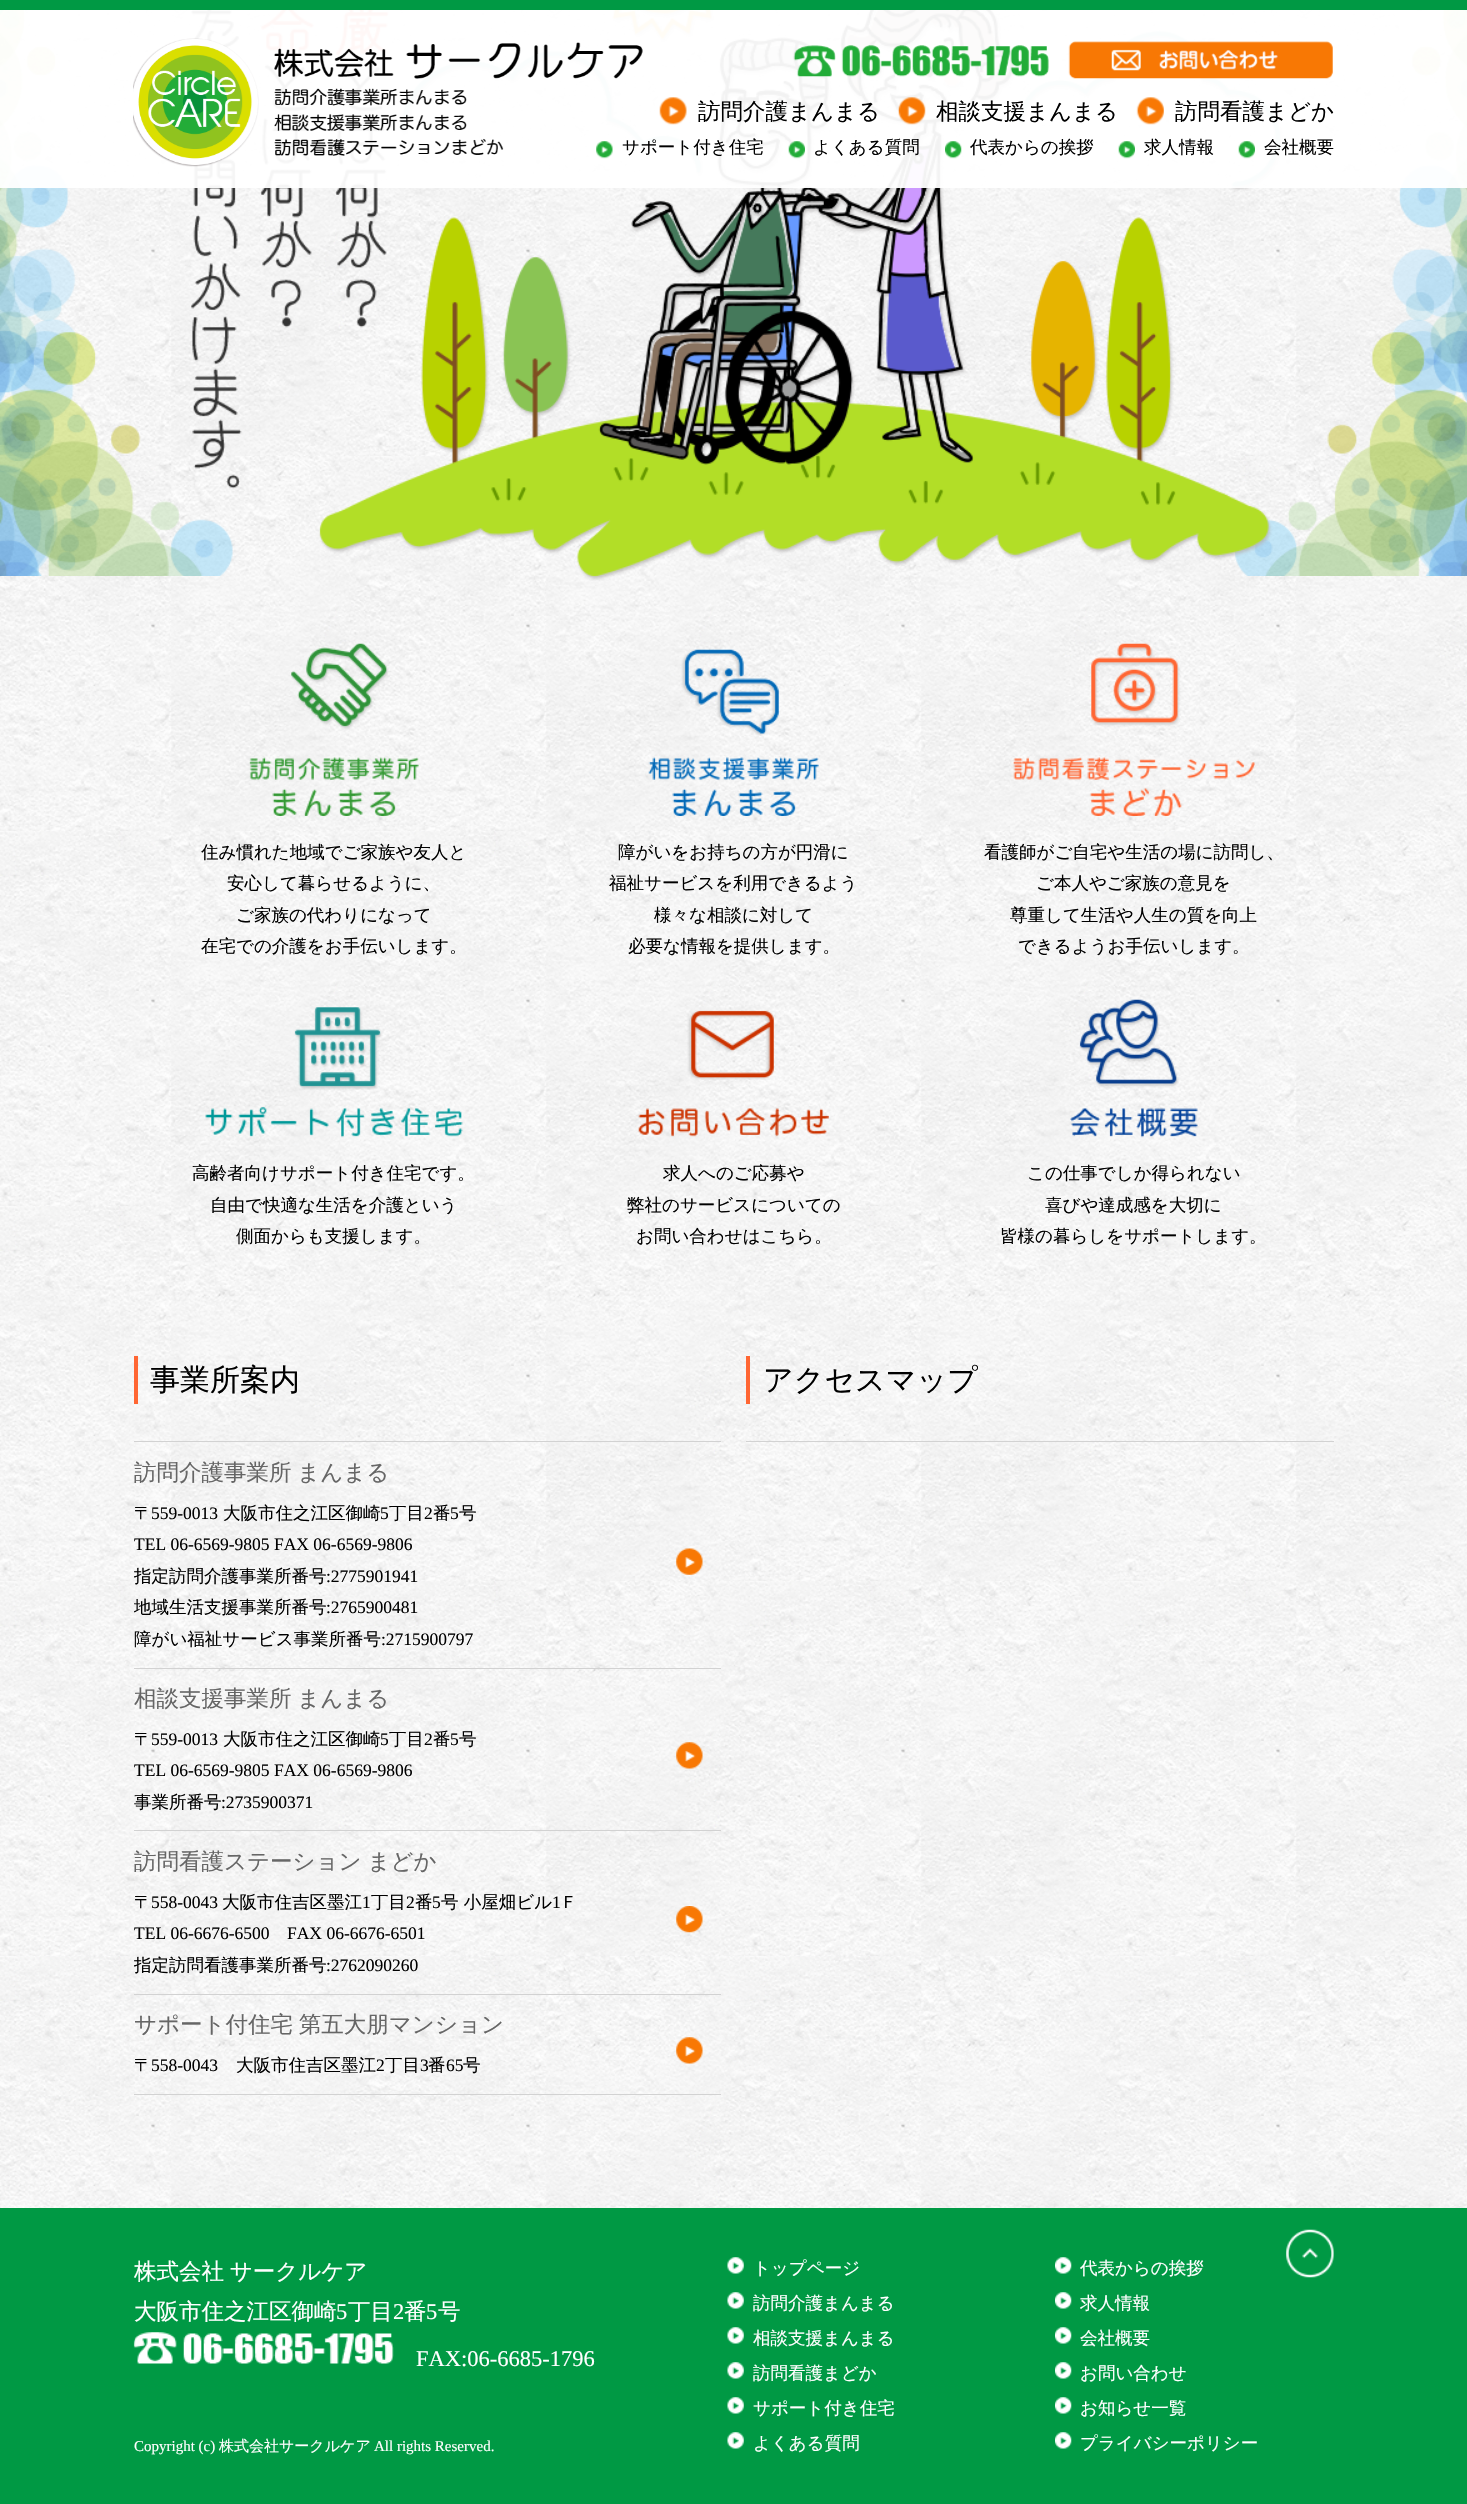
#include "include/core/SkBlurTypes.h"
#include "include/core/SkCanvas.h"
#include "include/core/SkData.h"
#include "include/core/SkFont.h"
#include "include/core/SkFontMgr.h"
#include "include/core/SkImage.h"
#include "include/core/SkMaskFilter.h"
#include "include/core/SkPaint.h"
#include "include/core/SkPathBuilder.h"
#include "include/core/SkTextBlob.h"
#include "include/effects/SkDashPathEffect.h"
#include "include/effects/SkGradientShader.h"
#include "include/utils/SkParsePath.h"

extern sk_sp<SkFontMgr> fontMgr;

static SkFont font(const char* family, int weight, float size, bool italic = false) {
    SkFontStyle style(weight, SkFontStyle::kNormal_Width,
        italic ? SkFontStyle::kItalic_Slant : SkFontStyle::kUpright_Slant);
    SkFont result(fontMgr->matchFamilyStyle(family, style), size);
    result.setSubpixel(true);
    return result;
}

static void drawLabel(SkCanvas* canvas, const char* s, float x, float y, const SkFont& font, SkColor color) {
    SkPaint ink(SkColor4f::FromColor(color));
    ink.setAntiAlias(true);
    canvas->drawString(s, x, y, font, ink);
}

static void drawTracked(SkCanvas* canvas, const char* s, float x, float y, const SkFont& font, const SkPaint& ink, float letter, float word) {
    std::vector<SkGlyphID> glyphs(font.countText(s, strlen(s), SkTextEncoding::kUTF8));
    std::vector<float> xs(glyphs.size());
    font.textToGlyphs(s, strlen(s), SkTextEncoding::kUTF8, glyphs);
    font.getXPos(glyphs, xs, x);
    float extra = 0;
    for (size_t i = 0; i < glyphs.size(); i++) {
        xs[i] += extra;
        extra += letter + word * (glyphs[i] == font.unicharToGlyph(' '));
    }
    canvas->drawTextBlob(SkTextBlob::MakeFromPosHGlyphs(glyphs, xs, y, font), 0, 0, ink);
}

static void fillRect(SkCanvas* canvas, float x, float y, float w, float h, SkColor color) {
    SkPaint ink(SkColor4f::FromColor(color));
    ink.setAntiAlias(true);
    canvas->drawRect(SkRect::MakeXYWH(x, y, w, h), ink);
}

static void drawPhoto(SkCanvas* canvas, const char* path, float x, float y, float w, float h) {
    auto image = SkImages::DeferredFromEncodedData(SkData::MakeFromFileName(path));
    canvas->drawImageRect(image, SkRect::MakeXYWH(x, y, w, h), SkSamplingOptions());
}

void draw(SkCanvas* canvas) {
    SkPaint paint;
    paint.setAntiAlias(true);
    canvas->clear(0xFFFFFFFF);
    drawPhoto(canvas, "assets/img1.png", 0, 10, 1467, 2198);
    drawPhoto(canvas, "assets/img2.png", 0, 10, 1467, 566);
    drawPhoto(canvas, "assets/img14.png", 191, 10, 1093, 571);
    fillRect(canvas, 0, 10, 1467, 178, 0xF2FFFFFF);
    fillRect(canvas, 0, 0, 1467, 10, 0xFF009944);
    drawPhoto(canvas, "assets/img9.png", 596, 141, 17, 18);
    SkFont font1 = font("WenQuanYi Zen Hei", 500, 17.5f);
    drawLabel(canvas, "サポート付き住宅", 622, 153, font1, 0xFF000000);
    drawPhoto(canvas, "assets/img3.png", 133, 38, 510, 129);
    drawPhoto(canvas, "assets/img4.png", 793, 45, 256, 32);
    drawPhoto(canvas, "assets/img5.png", 1068, 41, 265, 38);
    drawPhoto(canvas, "assets/img6.png", 659, 97, 28, 28);
    SkFont font2 = font("WenQuanYi Zen Hei", 500, 22.5f);
    drawLabel(canvas, "訪問介護まんまる", 698, 119, font2, 0xFF000000);
    drawPhoto(canvas, "assets/img7.png", 898, 97, 28, 28);
    drawLabel(canvas, "相談支援まんまる", 936, 119, font2, 0xFF000000);
    drawPhoto(canvas, "assets/img8.png", 1136, 97, 28, 28);
    drawLabel(canvas, "訪問看護まどか", 1175, 119, font2, 0xFF000000);
    drawPhoto(canvas, "assets/img10.png", 788, 141, 17, 18);
    drawLabel(canvas, "よくある質問", 813, 153, font1, 0xFF000000);
    drawPhoto(canvas, "assets/img11.png", 945, 141, 17, 18);
    drawLabel(canvas, "代表からの挨拶", 970, 153, font1, 0xFF000000);
    drawPhoto(canvas, "assets/img12.png", 1118, 141, 17, 18);
    drawLabel(canvas, "求人情報", 1144, 153, font1, 0xFF000000);
    drawPhoto(canvas, "assets/img13.png", 1238, 141, 17, 18);
    drawLabel(canvas, "会社概要", 1264, 153, font1, 0xFF000000);
    drawPhoto(canvas, "assets/img15.png", 249, 643, 170, 173);
    drawLabel(canvas, "住み慣れた地域でご家族や友人と", 201, 858, font1, 0xFF000000);
    drawLabel(canvas, "安心して暮らせるように、", 227, 889, font1, 0xFF000000);
    drawLabel(canvas, "ご家族の代わりになって", 236, 921, font1, 0xFF000000);
    drawLabel(canvas, "在宅での介護をお手伝いします。", 201, 952, font1, 0xFF000000);
    drawPhoto(canvas, "assets/img16.png", 648, 649, 171, 167);
    drawLabel(canvas, "障がいをお持ちの方が円滑に", 618, 858, font1, 0xFF000000);
    drawLabel(canvas, "福祉サービスを利用できるよう", 609, 889, font1, 0xFF000000);
    drawLabel(canvas, "様々な相談に対して", 654, 921, font1, 0xFF000000);
    drawLabel(canvas, "必要な情報を提供します。", 628, 952, font1, 0xFF000000);
    drawPhoto(canvas, "assets/img17.png", 1013, 643, 242, 173);
    drawLabel(canvas, "看護師がご自宅や生活の場に訪問し、", 984, 858, font1, 0xFF000000);
    drawLabel(canvas, "ご本人やご家族の意見を", 1036, 889, font1, 0xFF000000);
    drawLabel(canvas, "尊重して生活や人生の質を向上", 1010, 921, font1, 0xFF000000);
    drawLabel(canvas, "できるようお手伝いします。", 1018, 952, font1, 0xFF000000);
    drawPhoto(canvas, "assets/img18.png", 205, 1007, 258, 131);
    drawLabel(canvas, "高齢者向けサポート付き住宅です。", 192, 1179, font1, 0xFF000000);
    drawLabel(canvas, "自由で快適な生活を介護という", 210, 1211, font1, 0xFF000000);
    drawLabel(canvas, "側面からも支援します。", 236, 1242, font1, 0xFF000000);
    drawPhoto(canvas, "assets/img19.png", 638, 1010, 191, 127);
    drawLabel(canvas, "求人へのご応募や", 663, 1179, font1, 0xFF000000);
    drawLabel(canvas, "弊社のサービスについての", 627, 1211, font1, 0xFF000000);
    drawLabel(canvas, "お問い合わせはこちら。", 636, 1242, font1, 0xFF000000);
    drawPhoto(canvas, "assets/img20.png", 1070, 999, 128, 139);
    drawLabel(canvas, "この仕事でしか得られない", 1027, 1179, font1, 0xFF000000);
    drawLabel(canvas, "喜びや達成感を大切に", 1045, 1211, font1, 0xFF000000);
    drawLabel(canvas, "皆様の暮らしをサポートします。", 1000, 1242, font1, 0xFF000000);
    fillRect(canvas, 134, 1441, 587, 1, 0xFFD2D2D2);
    fillRect(canvas, 134, 1356, 4, 48, 0xFFFF6633);
    SkFont font3 = font("WenQuanYi Zen Hei", 500, 30);
    drawLabel(canvas, "事業所案内", 150, 1390, font3, 0xFF000000);
    drawPhoto(canvas, "assets/img21.png", 676, 1548, 27, 27);
    fillRect(canvas, 134, 1668, 587, 1, 0xFFD2D2D2);
    paint.setColor(0xFF666666);
    drawTracked(canvas, "訪問介護事業所 まんまる", 134, 1480, font2, paint, 0, -1);
    drawLabel(canvas, "〒", 134, 1519, font1, 0xFF000000);
    SkFont font4 = font("Liberation Serif", 400, 17.5f);
    drawLabel(canvas, "559-0013", 151, 1519, font4, 0xFF000000);
    drawLabel(canvas, "大阪市住之江区御崎", 223, 1519, font1, 0xFF000000);
    drawLabel(canvas, "5", 380, 1519, font4, 0xFF000000);
    drawLabel(canvas, "丁目", 389, 1519, font1, 0xFF000000);
    drawLabel(canvas, "2", 424, 1519, font4, 0xFF000000);
    drawLabel(canvas, "番", 433, 1519, font1, 0xFF000000);
    drawLabel(canvas, "5", 450, 1519, font4, 0xFF000000);
    drawLabel(canvas, "号", 459, 1519, font1, 0xFF000000);
    drawLabel(canvas, "TEL 06-6569-9805 FAX 06-6569-9806", 134, 1550, font4, 0xFF000000);
    drawLabel(canvas, "指定訪問介護事業所番号", 134, 1582, font1, 0xFF000000);
    drawLabel(canvas, ":2775901941", 326, 1582, font4, 0xFF000000);
    drawLabel(canvas, "地域生活支援事業所番号", 134, 1613, font1, 0xFF000000);
    drawLabel(canvas, ":2765900481", 326, 1613, font4, 0xFF000000);
    drawLabel(canvas, "障がい福祉サービス事業所番号", 134, 1645, font1, 0xFF000000);
    drawLabel(canvas, ":2715900797", 381, 1645, font4, 0xFF000000);
    drawPhoto(canvas, "assets/img22.png", 676, 1742, 27, 27);
    fillRect(canvas, 134, 1830, 587, 1, 0xFFD2D2D2);
    drawTracked(canvas, "相談支援事業所 まんまる", 134, 1706, font2, paint, 0, -1);
    drawLabel(canvas, "〒", 134, 1745, font1, 0xFF000000);
    drawLabel(canvas, "559-0013", 151, 1745, font4, 0xFF000000);
    drawLabel(canvas, "大阪市住之江区御崎", 223, 1745, font1, 0xFF000000);
    drawLabel(canvas, "5", 380, 1745, font4, 0xFF000000);
    drawLabel(canvas, "丁目", 389, 1745, font1, 0xFF000000);
    drawLabel(canvas, "2", 424, 1745, font4, 0xFF000000);
    drawLabel(canvas, "番", 433, 1745, font1, 0xFF000000);
    drawLabel(canvas, "5", 450, 1745, font4, 0xFF000000);
    drawLabel(canvas, "号", 459, 1745, font1, 0xFF000000);
    drawLabel(canvas, "TEL 06-6569-9805 FAX 06-6569-9806", 134, 1776, font4, 0xFF000000);
    drawLabel(canvas, "事業所番号", 134, 1808, font1, 0xFF000000);
    drawLabel(canvas, ":2735900371", 221, 1808, font4, 0xFF000000);
    drawPhoto(canvas, "assets/img23.png", 676, 1906, 27, 27);
    fillRect(canvas, 134, 1994, 587, 1, 0xFFD2D2D2);
    drawTracked(canvas, "訪問看護ステーション まどか", 134, 1869, font2, paint, 0, -1);
    drawLabel(canvas, "〒", 134, 1908, font1, 0xFF000000);
    drawLabel(canvas, "558-0043", 151, 1908, font4, 0xFF000000);
    drawLabel(canvas, "大阪市住吉区墨江", 222, 1908, font1, 0xFF000000);
    drawLabel(canvas, "1", 362, 1908, font4, 0xFF000000);
    drawLabel(canvas, "丁目", 371, 1908, font1, 0xFF000000);
    drawLabel(canvas, "2", 406, 1908, font4, 0xFF000000);
    drawLabel(canvas, "番", 415, 1908, font1, 0xFF000000);
    drawLabel(canvas, "5", 432, 1908, font4, 0xFF000000);
    drawLabel(canvas, "号 小屋畑ビル", 441, 1908, font1, 0xFF000000);
    drawLabel(canvas, "1", 552, 1908, font4, 0xFF000000);
    drawLabel(canvas, "Ｆ", 560, 1908, font1, 0xFF000000);
    drawLabel(canvas, "TEL 06-6676-6500", 134, 1939, font4, 0xFF000000);
    drawLabel(canvas, "FAX 06-6676-6501", 287, 1939, font4, 0xFF000000);
    drawLabel(canvas, "指定訪問看護事業所番号", 134, 1971, font1, 0xFF000000);
    drawLabel(canvas, ":2762090260", 326, 1971, font4, 0xFF000000);
    drawPhoto(canvas, "assets/img24.png", 676, 2037, 27, 27);
    fillRect(canvas, 134, 2094, 587, 1, 0xFFD2D2D2);
    drawTracked(canvas, "サポート付住宅 第五大朋マンション", 134, 2032, font2, paint, 0, -1);
    drawLabel(canvas, "〒", 134, 2071, font1, 0xFF000000);
    drawLabel(canvas, "558-0043", 151, 2071, font4, 0xFF000000);
    drawLabel(canvas, "大阪市住吉区墨江", 236, 2071, font1, 0xFF000000);
    drawLabel(canvas, "2", 376, 2071, font4, 0xFF000000);
    drawLabel(canvas, "丁目", 385, 2071, font1, 0xFF000000);
    drawLabel(canvas, "3", 420, 2071, font4, 0xFF000000);
    drawLabel(canvas, "番", 428, 2071, font1, 0xFF000000);
    drawLabel(canvas, "65", 446, 2071, font4, 0xFF000000);
    drawLabel(canvas, "号", 463, 2071, font1, 0xFF000000);
    fillRect(canvas, 746, 1441, 588, 1, 0xFFD2D2D2);
    fillRect(canvas, 746, 1356, 4, 48, 0xFFFF6633);
    drawLabel(canvas, "アクセスマップ", 763, 1390, font3, 0xFF000000);
    fillRect(canvas, 0, 2208, 1467, 296, 0xFF009944);
    drawPhoto(canvas, "assets/img25.png", 1286, 2229, 48, 49);
    paint.setColor(0xFFFFFFFF);
    drawTracked(canvas, "株式会社 サークルケア", 134, 2279, font2, paint, 0, -1);
    drawLabel(canvas, "大阪市住之江区御崎", 134, 2319, font2, 0xFFFFFFFF);
    SkFont font5 = font("Liberation Serif", 400, 22.5f);
    drawLabel(canvas, "5", 336, 2319, font5, 0xFFFFFFFF);
    drawLabel(canvas, "丁目", 348, 2319, font2, 0xFFFFFFFF);
    drawLabel(canvas, "2", 393, 2319, font5, 0xFFFFFFFF);
    drawLabel(canvas, "番", 404, 2319, font2, 0xFFFFFFFF);
    drawLabel(canvas, "5", 426, 2319, font5, 0xFFFFFFFF);
    drawLabel(canvas, "号", 438, 2319, font2, 0xFFFFFFFF);
    drawPhoto(canvas, "assets/img26.png", 133, 2332, 261, 32);
    drawLabel(canvas, "FAX:06-6685-1796", 416, 2366, font5, 0xFFFFFFFF);
    drawPhoto(canvas, "assets/img27.png", 727, 2257, 17, 17);
    drawLabel(canvas, "トップページ", 753, 2274, font1, 0xFFFFFFFF);
    drawPhoto(canvas, "assets/img27.png", 727, 2292, 17, 17);
    drawLabel(canvas, "訪問介護まんまる", 753, 2309, font1, 0xFFFFFFFF);
    drawPhoto(canvas, "assets/img27.png", 727, 2327, 17, 17);
    drawLabel(canvas, "相談支援まんまる", 753, 2344, font1, 0xFFFFFFFF);
    drawPhoto(canvas, "assets/img27.png", 727, 2362, 17, 17);
    drawLabel(canvas, "訪問看護まどか", 753, 2379, font1, 0xFFFFFFFF);
    drawPhoto(canvas, "assets/img27.png", 727, 2397, 17, 17);
    drawLabel(canvas, "サポート付き住宅", 753, 2414, font1, 0xFFFFFFFF);
    drawPhoto(canvas, "assets/img27.png", 727, 2432, 17, 17);
    drawLabel(canvas, "よくある質問", 753, 2449, font1, 0xFFFFFFFF);
    drawPhoto(canvas, "assets/img28.png", 1055, 2257, 17, 17);
    drawLabel(canvas, "代表からの挨拶", 1080, 2274, font1, 0xFFFFFFFF);
    drawPhoto(canvas, "assets/img28.png", 1055, 2292, 17, 17);
    drawLabel(canvas, "求人情報", 1080, 2309, font1, 0xFFFFFFFF);
    drawPhoto(canvas, "assets/img28.png", 1055, 2327, 17, 17);
    drawLabel(canvas, "会社概要", 1080, 2344, font1, 0xFFFFFFFF);
    drawPhoto(canvas, "assets/img28.png", 1055, 2362, 17, 17);
    drawLabel(canvas, "お問い合わせ", 1080, 2379, font1, 0xFFFFFFFF);
    drawPhoto(canvas, "assets/img28.png", 1055, 2397, 17, 17);
    drawLabel(canvas, "お知らせ一覧", 1080, 2414, font1, 0xFFFFFFFF);
    drawPhoto(canvas, "assets/img28.png", 1055, 2432, 17, 17);
    drawLabel(canvas, "プライバシーポリシー", 1080, 2449, font1, 0xFFFFFFFF);
    SkFont font6 = font("Liberation Serif", 400, 15);
    drawLabel(canvas, "Copyright (c)", 134, 2451, font6, 0xFFFFFFFF);
    SkFont font7 = font("WenQuanYi Zen Hei", 500, 15);
    drawLabel(canvas, "株式会社サークルケア", 219, 2451, font7, 0xFFFFFFFF);
    drawLabel(canvas, "All rights Reserved.", 374, 2451, font6, 0xFFFFFFFF);
}
